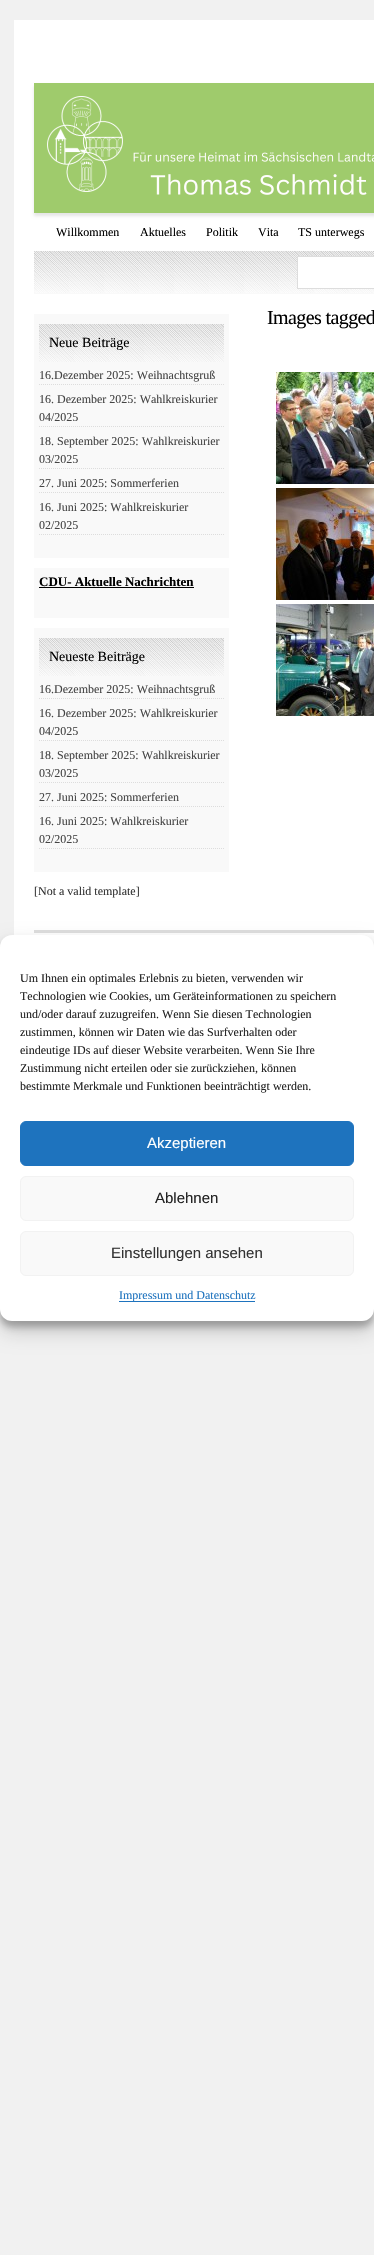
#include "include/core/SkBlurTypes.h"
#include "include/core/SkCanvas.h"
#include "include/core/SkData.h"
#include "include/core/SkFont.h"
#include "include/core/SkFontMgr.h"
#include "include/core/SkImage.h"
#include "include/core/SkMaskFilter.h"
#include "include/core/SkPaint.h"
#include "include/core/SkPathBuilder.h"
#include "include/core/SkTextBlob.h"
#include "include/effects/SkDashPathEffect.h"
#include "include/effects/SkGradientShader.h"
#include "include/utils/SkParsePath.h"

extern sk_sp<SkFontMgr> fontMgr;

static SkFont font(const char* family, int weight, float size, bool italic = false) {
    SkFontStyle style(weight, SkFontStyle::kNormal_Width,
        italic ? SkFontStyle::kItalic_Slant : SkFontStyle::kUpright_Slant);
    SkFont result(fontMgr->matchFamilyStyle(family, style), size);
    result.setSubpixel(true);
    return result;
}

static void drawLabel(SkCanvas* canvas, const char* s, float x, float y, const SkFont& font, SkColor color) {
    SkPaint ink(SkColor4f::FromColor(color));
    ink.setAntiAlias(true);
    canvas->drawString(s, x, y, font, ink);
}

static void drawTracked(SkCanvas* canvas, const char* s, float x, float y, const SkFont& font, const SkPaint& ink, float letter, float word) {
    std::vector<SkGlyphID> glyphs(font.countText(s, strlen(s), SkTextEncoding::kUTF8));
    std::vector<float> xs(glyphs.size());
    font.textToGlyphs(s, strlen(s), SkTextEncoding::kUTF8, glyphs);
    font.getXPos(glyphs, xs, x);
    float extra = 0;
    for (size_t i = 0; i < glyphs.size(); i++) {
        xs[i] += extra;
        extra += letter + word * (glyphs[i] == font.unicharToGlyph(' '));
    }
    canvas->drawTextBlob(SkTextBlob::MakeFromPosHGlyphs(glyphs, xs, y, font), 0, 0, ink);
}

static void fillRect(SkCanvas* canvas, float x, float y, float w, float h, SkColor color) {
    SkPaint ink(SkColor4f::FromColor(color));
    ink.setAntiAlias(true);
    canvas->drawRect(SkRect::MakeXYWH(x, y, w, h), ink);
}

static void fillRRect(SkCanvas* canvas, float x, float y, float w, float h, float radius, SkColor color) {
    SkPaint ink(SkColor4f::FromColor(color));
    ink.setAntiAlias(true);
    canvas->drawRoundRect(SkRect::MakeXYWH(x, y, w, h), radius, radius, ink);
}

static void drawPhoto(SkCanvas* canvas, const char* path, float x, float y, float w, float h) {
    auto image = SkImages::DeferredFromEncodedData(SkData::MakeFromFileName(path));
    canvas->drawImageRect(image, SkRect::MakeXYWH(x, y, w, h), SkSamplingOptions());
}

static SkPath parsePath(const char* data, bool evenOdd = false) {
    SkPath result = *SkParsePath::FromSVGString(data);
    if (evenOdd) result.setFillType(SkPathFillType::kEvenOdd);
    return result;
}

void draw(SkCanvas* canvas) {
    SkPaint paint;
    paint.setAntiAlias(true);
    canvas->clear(0xFFF1F1F1);
    fillRect(canvas, 14, 20, 360, 927, 0xFFFFFFFF);
    paint.setColor(0x1A000000);
    paint.setMaskFilter(SkMaskFilter::MakeBlur(kNormal_SkBlurStyle, 1.5f));
    canvas->drawRect(SkRect::MakeXYWH(34, 86, 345, 130), paint);
    paint.setMaskFilter(nullptr);
    drawPhoto(canvas, "assets/img1.png", 34, 83, 340, 130);
    SkFont font1 = font("Liberation Serif", 400, 12);
    drawLabel(canvas, "Willkommen", 56, 236, font1, 0xFF000000);
    drawLabel(canvas, "Aktuelles", 140, 236, font1, 0xFF000000);
    drawLabel(canvas, "Politik", 206, 236, font1, 0xFF000000);
    drawLabel(canvas, "Vita", 258, 236, font1, 0xFF000000);
    drawLabel(canvas, "TS unterwegs", 298, 236, font1, 0xFF000000);
    fillRect(canvas, 34, 293, 340, 1, 0xFFF9F9F9);
    drawPhoto(canvas, "assets/img2.png", 34, 251, 340, 42);
    paint.setColor(0xFFFFFFFF);
    canvas->drawRect(SkRect::MakeXYWH(297.5f, 256.5f, 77, 32), paint);
    paint.setStroke(true);
    paint.setStrokeWidth(1);
    paint.setColor(0xFFDDDDDD);
    canvas->drawRect(SkRect::MakeXYWH(297.5f, 256.5f, 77, 32), paint);
    SkFont font2 = font("Liberation Serif", 400, 20);
    paint.setStroke(false);
    paint.setColor(0xFF000000);
    drawTracked(canvas, "Images tagged", 267, 324, font2, paint, -0.6f, 0);
    drawPhoto(canvas, "assets/img3.png", 276, 372, 98, 112);
    drawPhoto(canvas, "assets/img4.png", 276, 488, 98, 112);
    drawPhoto(canvas, "assets/img5.png", 276, 604, 98, 112);
    fillRect(canvas, 34, 314, 195, 244, 0xFFF9F9F9);
    drawPhoto(canvas, "assets/img6.png", 39, 324, 185, 38);
    SkFont font3 = font("Liberation Serif", 400, 14);
    drawLabel(canvas, "Neue Beiträge", 49, 347, font3, 0xFF000000);
    paint.setStroke(true);
    paint.setColor(0xFFDDDDDD);
    paint.setPathEffect(SkDashPathEffect::Make({{1, 1}}, 0));
    canvas->drawPath(parsePath("M39 384.5H224"), paint);
    paint.setPathEffect(nullptr);
    drawLabel(canvas, "16.Dezember 2025: Weihnachtsgruß", 39, 379, font1, 0xFF444444);
    paint.setPathEffect(SkDashPathEffect::Make({{1, 1}}, 0));
    canvas->drawPath(parsePath("M39 426.5H224"), paint);
    paint.setPathEffect(nullptr);
    drawLabel(canvas, "16. Dezember 2025: Wahlkreiskurier", 39, 403, font1, 0xFF444444);
    drawLabel(canvas, "04/2025", 39, 421, font1, 0xFF444444);
    paint.setPathEffect(SkDashPathEffect::Make({{1, 1}}, 0));
    canvas->drawPath(parsePath("M39 468.5H224"), paint);
    paint.setPathEffect(nullptr);
    drawLabel(canvas, "18. September 2025: Wahlkreiskurier", 39, 445, font1, 0xFF444444);
    drawLabel(canvas, "03/2025", 39, 463, font1, 0xFF444444);
    paint.setPathEffect(SkDashPathEffect::Make({{1, 1}}, 0));
    canvas->drawPath(parsePath("M39 492.5H224"), paint);
    paint.setPathEffect(nullptr);
    drawLabel(canvas, "27. Juni 2025: Sommerferien", 39, 487, font1, 0xFF444444);
    paint.setPathEffect(SkDashPathEffect::Make({{1, 1}}, 0));
    canvas->drawPath(parsePath("M39 534.5H224"), paint);
    paint.setPathEffect(nullptr);
    drawLabel(canvas, "16. Juni 2025: Wahlkreiskurier", 39, 511, font1, 0xFF444444);
    drawLabel(canvas, "02/2025", 39, 529, font1, 0xFF444444);
    fillRect(canvas, 34, 568, 195, 50, 0xFFF9F9F9);
    SkFont font4 = font("Liberation Serif", 700, 13);
    drawLabel(canvas, "CDU- Aktuelle Nachrichten", 39, 586, font4, 0xFF000000);
    fillRect(canvas, 39, 587, 155, 1, 0xFF000000);
    fillRect(canvas, 34, 628, 195, 244, 0xFFF9F9F9);
    drawPhoto(canvas, "assets/img6.png", 39, 638, 185, 38);
    drawLabel(canvas, "Neueste Beiträge", 49, 661, font3, 0xFF000000);
    paint.setPathEffect(SkDashPathEffect::Make({{1, 1}}, 0));
    canvas->drawPath(parsePath("M39 698.5H224"), paint);
    paint.setPathEffect(nullptr);
    drawLabel(canvas, "16.Dezember 2025: Weihnachtsgruß", 39, 693, font1, 0xFF444444);
    paint.setPathEffect(SkDashPathEffect::Make({{1, 1}}, 0));
    canvas->drawPath(parsePath("M39 740.5H224"), paint);
    paint.setPathEffect(nullptr);
    drawLabel(canvas, "16. Dezember 2025: Wahlkreiskurier", 39, 717, font1, 0xFF444444);
    drawLabel(canvas, "04/2025", 39, 735, font1, 0xFF444444);
    paint.setPathEffect(SkDashPathEffect::Make({{1, 1}}, 0));
    canvas->drawPath(parsePath("M39 782.5H224"), paint);
    paint.setPathEffect(nullptr);
    drawLabel(canvas, "18. September 2025: Wahlkreiskurier", 39, 759, font1, 0xFF444444);
    drawLabel(canvas, "03/2025", 39, 777, font1, 0xFF444444);
    paint.setPathEffect(SkDashPathEffect::Make({{1, 1}}, 0));
    canvas->drawPath(parsePath("M39 806.5H224"), paint);
    paint.setPathEffect(nullptr);
    drawLabel(canvas, "27. Juni 2025: Sommerferien", 39, 801, font1, 0xFF444444);
    paint.setPathEffect(SkDashPathEffect::Make({{1, 1}}, 0));
    canvas->drawPath(parsePath("M39 848.5H224"), paint);
    paint.setPathEffect(nullptr);
    drawLabel(canvas, "16. Juni 2025: Wahlkreiskurier", 39, 825, font1, 0xFF444444);
    drawLabel(canvas, "02/2025", 39, 843, font1, 0xFF444444);
    drawLabel(canvas, "[Not a valid template]", 34, 895, font1, 0xFF333333);
    fillRect(canvas, 34, 930, 340, 3, 0xFFDDDDDD);
    paint.setStroke(false);
    paint.setColor(0x3B000000);
    paint.setMaskFilter(SkMaskFilter::MakeBlur(kNormal_SkBlurStyle, 3));
    canvas->drawRoundRect(SkRect::MakeXYWH(0, 941, 374, 386), 12, 12, paint);
    paint.setMaskFilter(nullptr);
    paint.setColor(0x30000000);
    paint.setMaskFilter(SkMaskFilter::MakeBlur(kNormal_SkBlurStyle, 10));
    canvas->drawRoundRect(SkRect::MakeXYWH(0, 945, 374, 386), 12, 12, paint);
    paint.setMaskFilter(nullptr);
    fillRRect(canvas, 0, 935, 374, 386, 12, 0xFFFFFFFF);
    drawLabel(canvas, "Um Ihnen ein optimales Erlebnis zu bieten, verwenden wir", 20, 982, font1, 0xFF222222);
    drawLabel(canvas, "Technologien wie Cookies, um Geräteinformationen zu speichern", 20, 1000, font1, 0xFF222222);
    drawLabel(canvas, "und/oder darauf zuzugreifen. Wenn Sie diesen Technologien", 20, 1018, font1, 0xFF222222);
    drawLabel(canvas, "zustimmen, können wir Daten wie das Surfverhalten oder", 20, 1036, font1, 0xFF222222);
    drawLabel(canvas, "eindeutige IDs auf dieser Website verarbeiten. Wenn Sie Ihre", 20, 1054, font1, 0xFF222222);
    drawLabel(canvas, "Zustimmung nicht erteilen oder sie zurückziehen, können", 20, 1072, font1, 0xFF222222);
    drawLabel(canvas, "bestimmte Merkmale und Funktionen beeinträchtigt werden.", 20, 1090, font1, 0xFF222222);
    paint.setColor(0xFF1E73BE);
    canvas->drawRoundRect(SkRect::MakeXYWH(20.5f, 1121.5f, 333, 44), 5.5f, 5.5f, paint);
    paint.setStroke(true);
    canvas->drawRoundRect(SkRect::MakeXYWH(20.5f, 1121.5f, 333, 44), 5.5f, 5.5f, paint);
    SkFont font5 = font("Liberation Sans", 400, 15);
    drawLabel(canvas, "Akzeptieren", 147, 1148, font5, 0xFFFFFFFF);
    paint.setStroke(false);
    paint.setColor(0xFFF9F9F9);
    canvas->drawRoundRect(SkRect::MakeXYWH(20.5f, 1176.5f, 333, 44), 5.5f, 5.5f, paint);
    paint.setStroke(true);
    paint.setColor(0xFFF2F2F2);
    canvas->drawRoundRect(SkRect::MakeXYWH(20.5f, 1176.5f, 333, 44), 5.5f, 5.5f, paint);
    drawLabel(canvas, "Ablehnen", 155, 1203, font5, 0xFF222222);
    paint.setStroke(false);
    paint.setColor(0xFFF9F9F9);
    canvas->drawRoundRect(SkRect::MakeXYWH(20.5f, 1231.5f, 333, 44), 5.5f, 5.5f, paint);
    paint.setStroke(true);
    paint.setColor(0xFFF2F2F2);
    canvas->drawRoundRect(SkRect::MakeXYWH(20.5f, 1231.5f, 333, 44), 5.5f, 5.5f, paint);
    drawLabel(canvas, "Einstellungen ansehen", 111, 1258, font5, 0xFF333333);
    fillRect(canvas, 119, 1301, 136, 1, 0xFF1E73BE);
    drawLabel(canvas, "Impressum und Datenschutz", 119, 1299, font1, 0xFF1E73BE);
}
